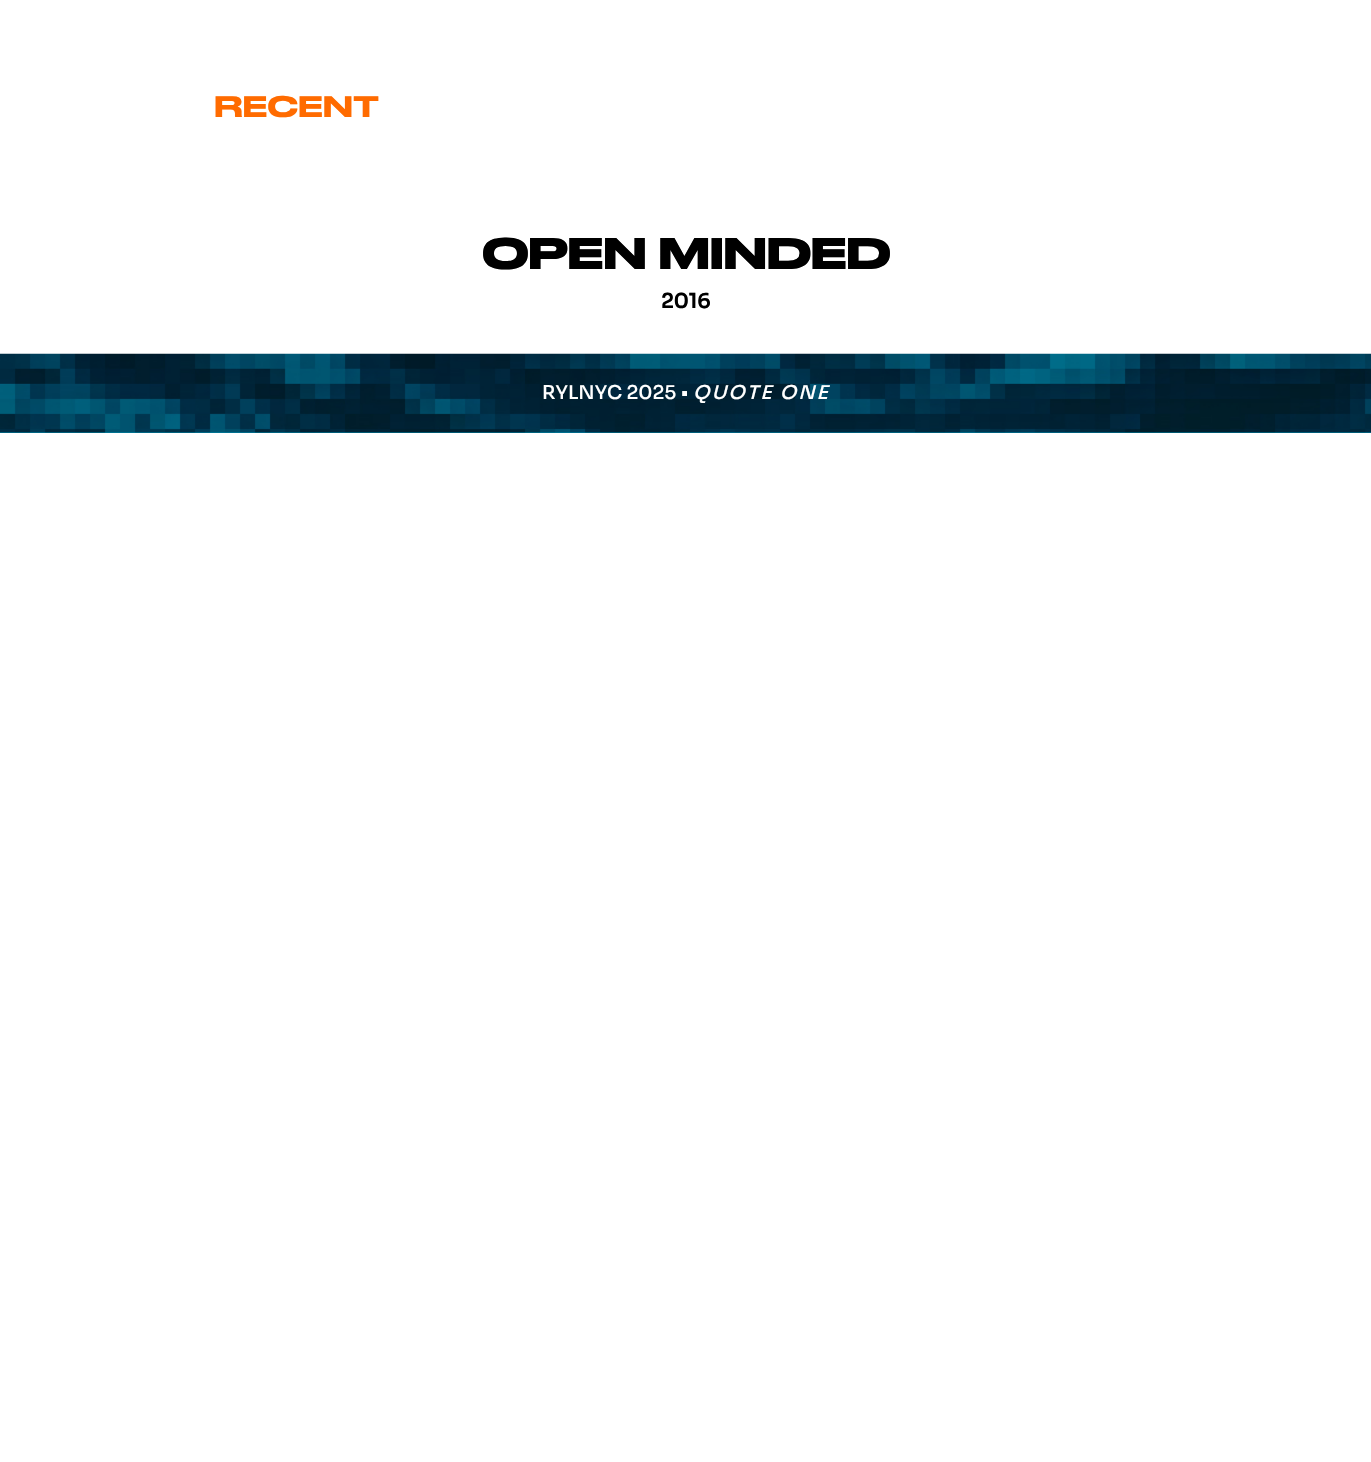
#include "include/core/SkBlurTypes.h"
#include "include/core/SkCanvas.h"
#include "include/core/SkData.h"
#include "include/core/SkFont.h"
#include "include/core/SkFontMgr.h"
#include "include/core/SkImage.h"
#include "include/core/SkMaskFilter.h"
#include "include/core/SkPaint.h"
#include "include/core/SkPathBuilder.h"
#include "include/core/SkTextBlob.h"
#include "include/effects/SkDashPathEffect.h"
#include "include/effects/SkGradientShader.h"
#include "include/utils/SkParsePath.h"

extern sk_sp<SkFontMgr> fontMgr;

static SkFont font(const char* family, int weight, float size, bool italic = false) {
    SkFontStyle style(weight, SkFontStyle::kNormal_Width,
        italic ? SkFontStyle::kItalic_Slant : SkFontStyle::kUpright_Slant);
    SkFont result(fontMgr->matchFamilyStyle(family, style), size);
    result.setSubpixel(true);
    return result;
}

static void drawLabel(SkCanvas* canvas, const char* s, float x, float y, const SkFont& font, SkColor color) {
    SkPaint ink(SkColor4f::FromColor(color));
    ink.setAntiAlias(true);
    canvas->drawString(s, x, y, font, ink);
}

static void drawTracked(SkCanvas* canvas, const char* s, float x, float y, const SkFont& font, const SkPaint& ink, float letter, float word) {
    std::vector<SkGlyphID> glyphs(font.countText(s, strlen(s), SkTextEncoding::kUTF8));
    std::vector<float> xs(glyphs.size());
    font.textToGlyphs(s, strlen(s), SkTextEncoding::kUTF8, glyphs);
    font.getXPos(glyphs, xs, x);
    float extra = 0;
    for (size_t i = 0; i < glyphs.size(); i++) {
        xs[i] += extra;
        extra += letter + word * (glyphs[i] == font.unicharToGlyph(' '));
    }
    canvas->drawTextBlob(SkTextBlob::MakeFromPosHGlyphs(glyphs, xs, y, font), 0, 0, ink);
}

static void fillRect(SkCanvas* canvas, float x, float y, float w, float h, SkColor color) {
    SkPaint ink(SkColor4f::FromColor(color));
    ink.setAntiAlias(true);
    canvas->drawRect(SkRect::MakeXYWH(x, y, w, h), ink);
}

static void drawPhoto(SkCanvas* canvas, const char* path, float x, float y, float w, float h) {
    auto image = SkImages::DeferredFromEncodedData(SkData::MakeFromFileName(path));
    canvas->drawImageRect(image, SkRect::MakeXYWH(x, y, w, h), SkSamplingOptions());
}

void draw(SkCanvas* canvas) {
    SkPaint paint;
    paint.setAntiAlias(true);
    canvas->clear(0xFFFFFFFF);
    SkFont font1 = font("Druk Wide", 500, 28);
    drawLabel(canvas, "RECENT", 214, 117, font1, 0xFFFF6B00);
    SkFont font2 = font("Druk Wide", 700, 40);
    drawLabel(canvas, "OPEN MINDED", 482, 269, font2, 0xFF000000);
    SkFont font3 = font("Sora", 700, 20);
    drawLabel(canvas, "2016", 661, 308, font3, 0xFF000000);
    fillRect(canvas, 0, 432, 1371, 1, 0xFF0091B3);
    drawPhoto(canvas, "assets/img1.png", 0, 353, 1371, 80);
    SkFont font4 = font("Sora", 500, 19);
    drawLabel(canvas, "RYLNYC 2025 •", 542, 399, font4, 0xFFFFFFFF);
    SkFont font5 = font("Sora", 500, 19, true);
    paint.setColor(0xFFFFFFFF);
    drawTracked(canvas, "QUOTE ONE", 693, 399, font5, paint, 2, 0);
}
